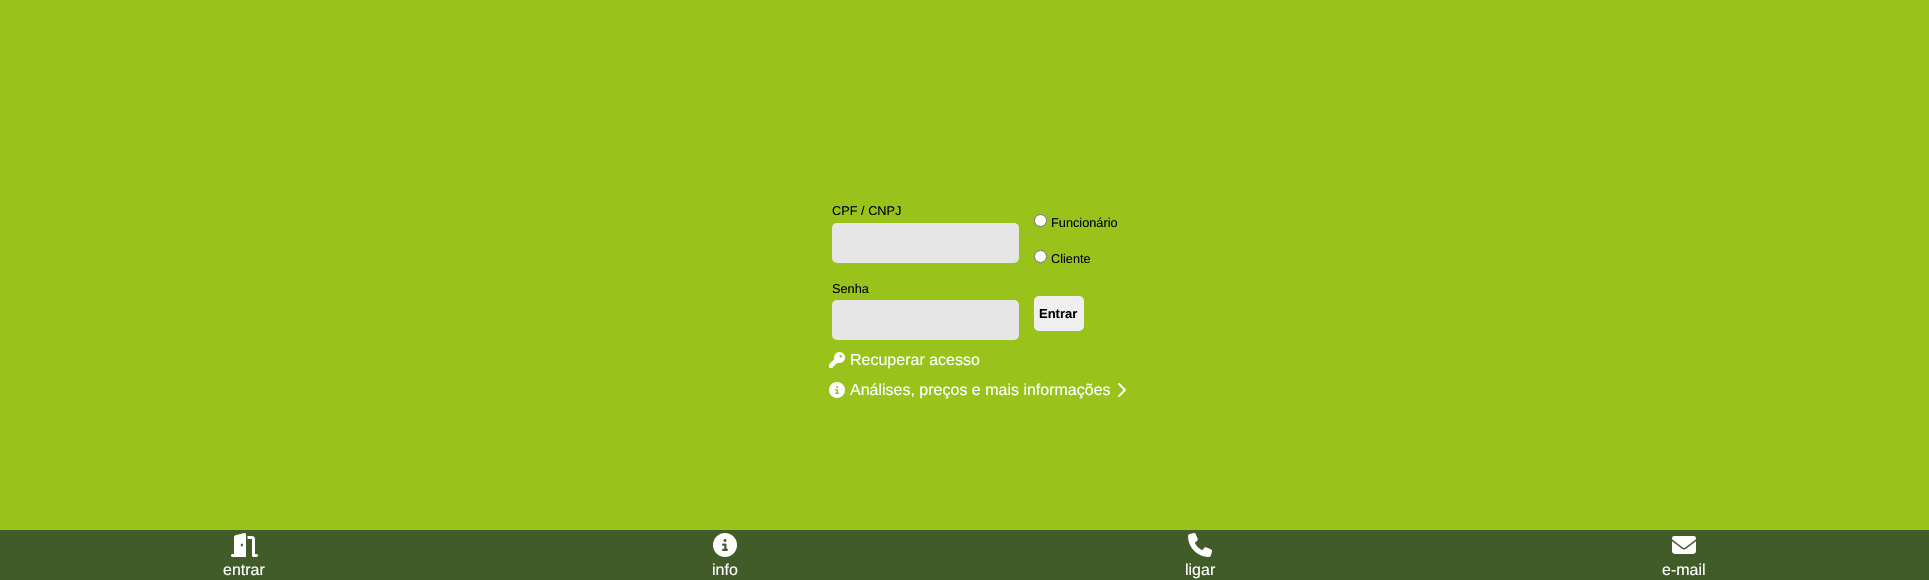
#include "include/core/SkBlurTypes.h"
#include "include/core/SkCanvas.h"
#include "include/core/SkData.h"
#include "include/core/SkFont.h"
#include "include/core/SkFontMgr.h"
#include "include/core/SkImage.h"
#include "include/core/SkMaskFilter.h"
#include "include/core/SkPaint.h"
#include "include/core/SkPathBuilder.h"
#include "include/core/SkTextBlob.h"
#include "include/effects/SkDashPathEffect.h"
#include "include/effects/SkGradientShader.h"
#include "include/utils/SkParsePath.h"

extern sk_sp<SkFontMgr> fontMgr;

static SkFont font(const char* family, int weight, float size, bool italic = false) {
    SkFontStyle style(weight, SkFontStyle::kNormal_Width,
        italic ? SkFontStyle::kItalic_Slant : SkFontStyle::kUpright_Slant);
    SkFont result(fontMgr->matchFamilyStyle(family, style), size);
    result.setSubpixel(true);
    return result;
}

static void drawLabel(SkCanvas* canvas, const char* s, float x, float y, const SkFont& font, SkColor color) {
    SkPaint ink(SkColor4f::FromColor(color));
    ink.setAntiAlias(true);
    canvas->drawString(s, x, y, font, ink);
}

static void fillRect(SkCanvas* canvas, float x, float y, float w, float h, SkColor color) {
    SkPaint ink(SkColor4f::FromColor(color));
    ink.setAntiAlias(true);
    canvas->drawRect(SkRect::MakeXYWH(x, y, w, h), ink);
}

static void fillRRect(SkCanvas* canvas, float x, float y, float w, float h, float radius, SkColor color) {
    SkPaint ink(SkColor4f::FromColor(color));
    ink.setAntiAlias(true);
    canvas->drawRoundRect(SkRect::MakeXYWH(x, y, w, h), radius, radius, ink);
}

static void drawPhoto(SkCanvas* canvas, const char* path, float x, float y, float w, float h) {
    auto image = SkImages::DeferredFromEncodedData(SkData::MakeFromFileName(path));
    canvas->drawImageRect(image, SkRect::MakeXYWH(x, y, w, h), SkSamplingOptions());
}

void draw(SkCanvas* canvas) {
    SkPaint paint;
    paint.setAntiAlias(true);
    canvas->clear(0xFF99C31B);
    SkFont font1 = font("Liberation Sans", 400, 12.75f);
    drawLabel(canvas, "CPF / CNPJ", 832, 215, font1, 0xFF000000);
    fillRRect(canvas, 832, 223, 187, 40, 5, 0xFFE6E6E6);
    drawLabel(canvas, "Senha", 832, 293, font1, 0xFF000000);
    fillRRect(canvas, 832, 300, 187, 40, 5, 0xFFE6E6E6);
    paint.setColor(0xFFFFFFFF);
    canvas->drawCircle(1040.5f, 220.5f, 6, paint);
    paint.setStroke(true);
    paint.setStrokeWidth(1);
    paint.setColor(0xFF767676);
    canvas->drawCircle(1040.5f, 220.5f, 6, paint);
    drawLabel(canvas, "Funcionário", 1051, 227, font1, 0xFF000000);
    paint.setStroke(false);
    paint.setColor(0xFFFFFFFF);
    canvas->drawCircle(1040.5f, 256.5f, 6, paint);
    paint.setStroke(true);
    paint.setColor(0xFF767676);
    canvas->drawCircle(1040.5f, 256.5f, 6, paint);
    drawLabel(canvas, "Cliente", 1051, 263, font1, 0xFF000000);
    fillRRect(canvas, 1034, 296, 50, 35, 5, 0xFFEFEFEF);
    SkFont font2 = font("Liberation Sans", 700, 13);
    drawLabel(canvas, "Entrar", 1039, 318, font2, 0xFF000000);
    drawPhoto(canvas, "assets/img1.png", 829, 352, 16, 16);
    SkFont font3 = font("Liberation Sans", 400, 16);
    drawLabel(canvas, "Recuperar acesso", 850, 365, font3, 0xFFFFFFFF);
    drawPhoto(canvas, "assets/img2.png", 829, 382, 16, 16);
    drawLabel(canvas, "Análises, preços e mais informações", 850, 395, font3, 0xFFFFFFFF);
    drawPhoto(canvas, "assets/img3.png", 1118, 383, 8, 14);
    fillRect(canvas, 0, 530, 1929, 50, 0xFF415C29);
    drawPhoto(canvas, "assets/img4.png", 231, 533, 27, 24);
    drawLabel(canvas, "entrar", 223, 575, font3, 0xFFFFFFFF);
    drawPhoto(canvas, "assets/img5.png", 713, 533, 24, 24);
    drawLabel(canvas, "info", 712, 575, font3, 0xFFFFFFFF);
    drawPhoto(canvas, "assets/img6.png", 1188, 533, 24, 24);
    drawLabel(canvas, "ligar", 1185, 575, font3, 0xFFFFFFFF);
    drawPhoto(canvas, "assets/img7.png", 1672, 536, 24, 18);
    drawLabel(canvas, "e-mail", 1662, 575, font3, 0xFFFFFFFF);
}
